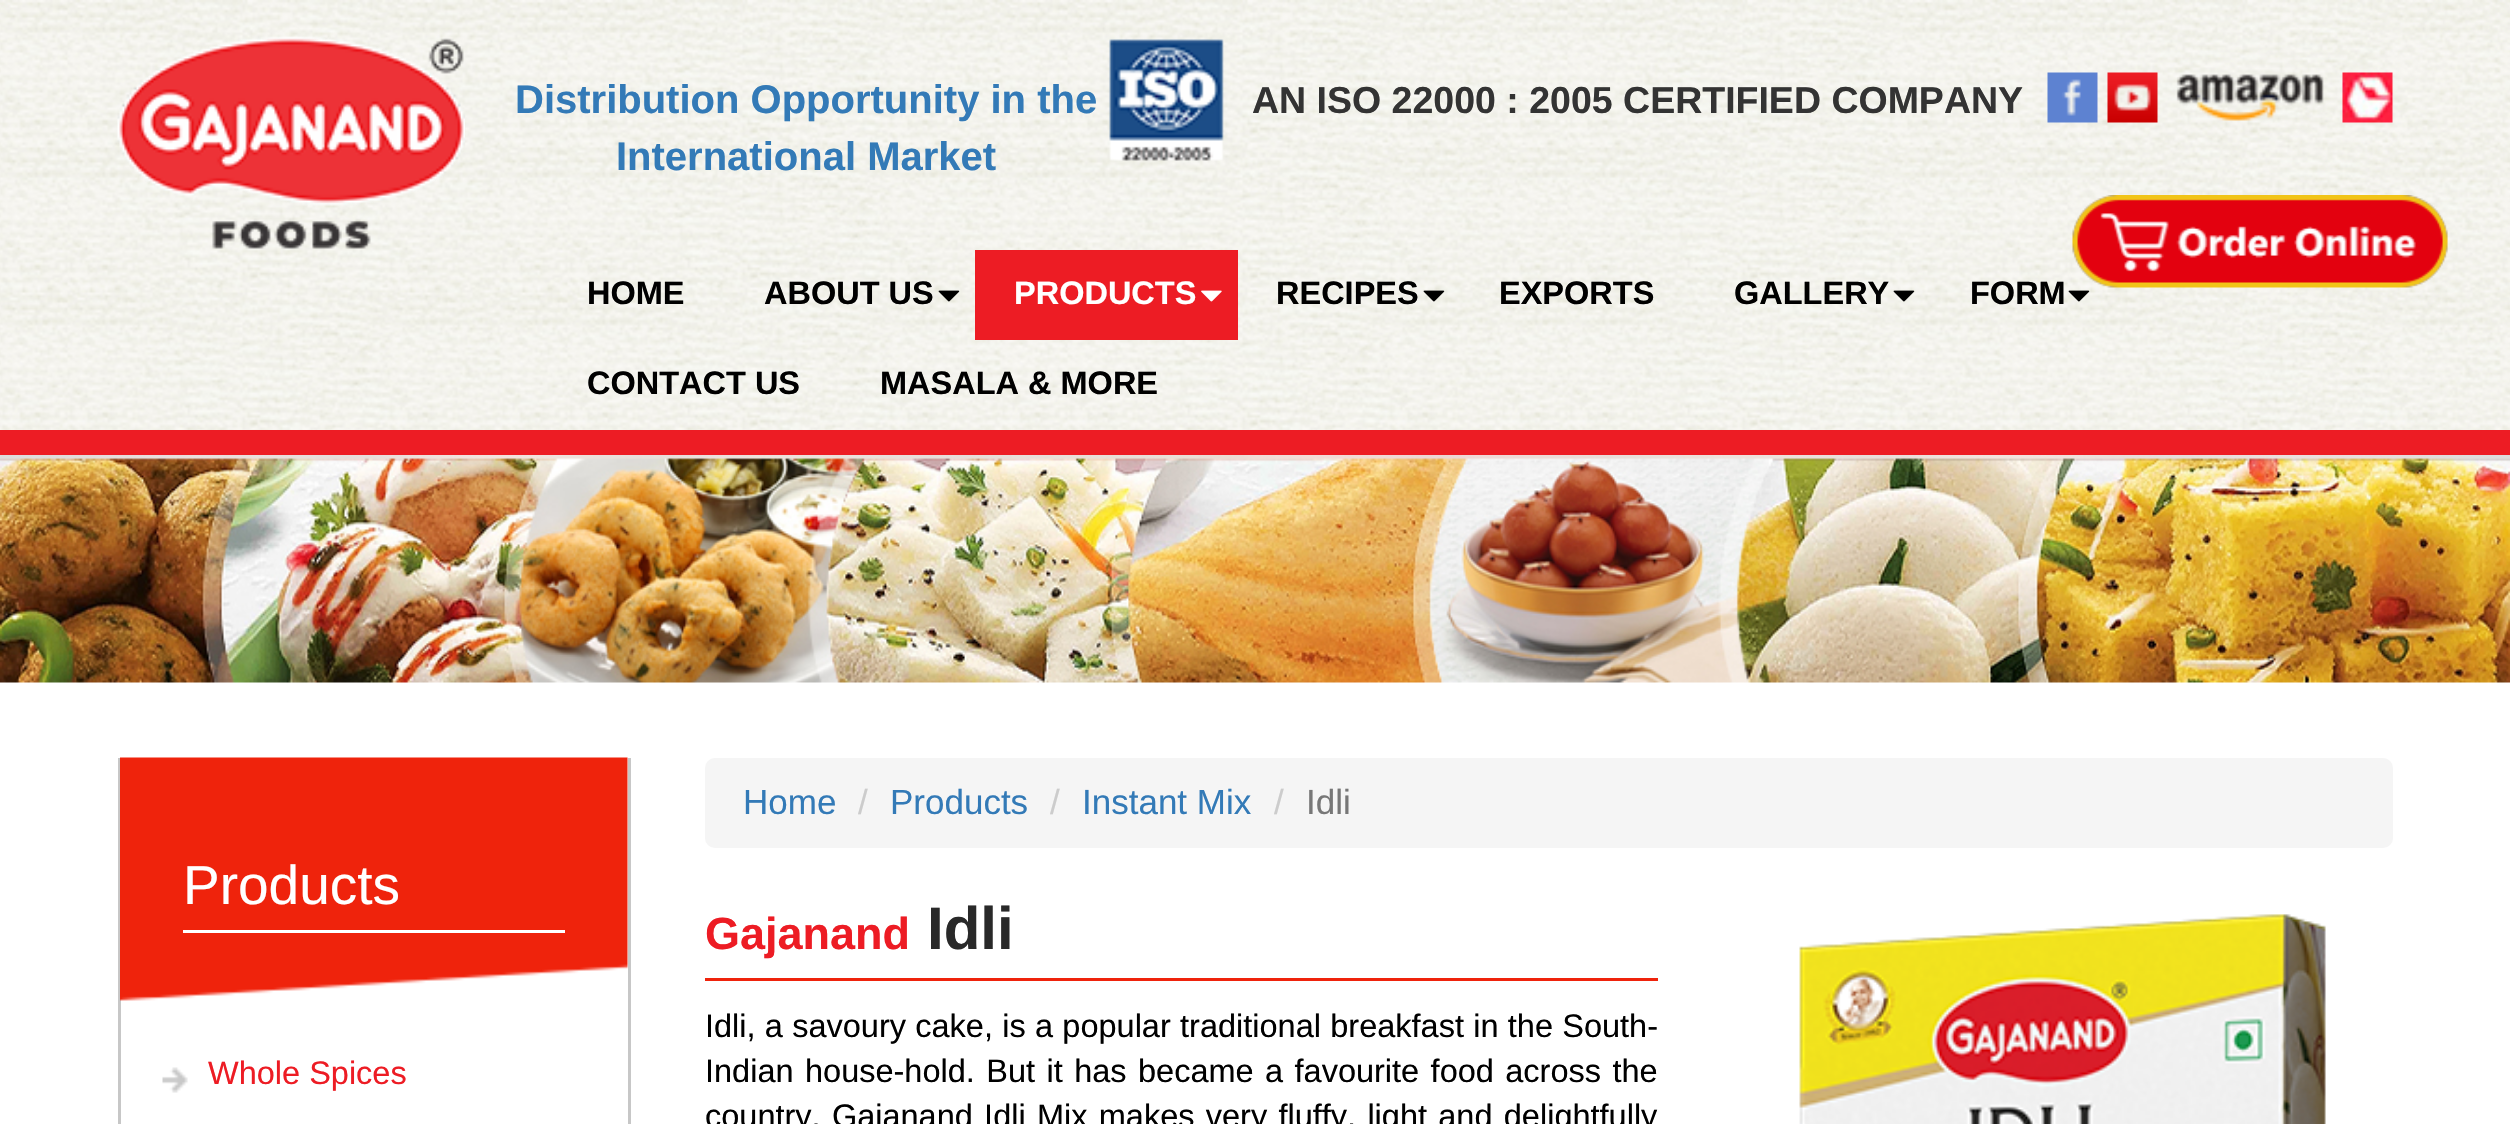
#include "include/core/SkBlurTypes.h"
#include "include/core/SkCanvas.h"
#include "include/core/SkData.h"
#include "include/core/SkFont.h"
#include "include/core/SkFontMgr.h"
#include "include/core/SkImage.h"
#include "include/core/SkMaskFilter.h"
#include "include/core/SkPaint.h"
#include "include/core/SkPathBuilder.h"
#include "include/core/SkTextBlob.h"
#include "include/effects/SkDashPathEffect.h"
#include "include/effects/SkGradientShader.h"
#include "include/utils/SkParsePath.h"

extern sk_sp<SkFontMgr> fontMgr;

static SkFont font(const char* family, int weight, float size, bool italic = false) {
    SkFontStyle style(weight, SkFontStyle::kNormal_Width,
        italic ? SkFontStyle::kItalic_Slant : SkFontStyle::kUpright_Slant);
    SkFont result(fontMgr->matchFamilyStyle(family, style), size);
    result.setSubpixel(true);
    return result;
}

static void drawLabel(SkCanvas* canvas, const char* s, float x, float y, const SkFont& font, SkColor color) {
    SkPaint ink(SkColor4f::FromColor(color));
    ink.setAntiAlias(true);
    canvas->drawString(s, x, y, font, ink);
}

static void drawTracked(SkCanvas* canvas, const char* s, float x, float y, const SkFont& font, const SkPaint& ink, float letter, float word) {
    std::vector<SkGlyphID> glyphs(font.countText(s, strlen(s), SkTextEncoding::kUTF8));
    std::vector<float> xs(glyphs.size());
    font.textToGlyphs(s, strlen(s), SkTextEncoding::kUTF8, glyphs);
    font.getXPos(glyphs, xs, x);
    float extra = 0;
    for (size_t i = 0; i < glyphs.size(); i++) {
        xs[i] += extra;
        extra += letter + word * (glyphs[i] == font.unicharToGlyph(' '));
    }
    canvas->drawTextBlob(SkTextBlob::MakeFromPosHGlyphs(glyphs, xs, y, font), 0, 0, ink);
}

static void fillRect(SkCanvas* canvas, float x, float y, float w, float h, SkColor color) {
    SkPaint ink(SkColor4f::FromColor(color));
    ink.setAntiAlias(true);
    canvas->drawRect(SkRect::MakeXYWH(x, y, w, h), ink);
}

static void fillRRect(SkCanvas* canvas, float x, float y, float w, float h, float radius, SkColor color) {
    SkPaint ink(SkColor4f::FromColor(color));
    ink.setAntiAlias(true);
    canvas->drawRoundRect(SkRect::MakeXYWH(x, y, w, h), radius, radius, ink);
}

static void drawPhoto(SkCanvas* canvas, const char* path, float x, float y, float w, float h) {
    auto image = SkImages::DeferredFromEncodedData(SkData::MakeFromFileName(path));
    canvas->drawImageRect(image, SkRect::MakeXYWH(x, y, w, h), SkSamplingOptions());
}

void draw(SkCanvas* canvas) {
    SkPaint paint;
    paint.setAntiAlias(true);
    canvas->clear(0xFFFFFFFF);
    drawPhoto(canvas, "assets/img1.png", 0, 0, 2510, 430);
    fillRect(canvas, 0, 430, 2510, 25, 0xFFED1C24);
    drawPhoto(canvas, "assets/img2.png", 117, 36, 348, 213);
    SkFont font1 = font("Liberation Sans", 700, 40);
    drawLabel(canvas, "Distribution Opportunity in the", 515, 113, font1, 0xFF337AB7);
    drawLabel(canvas, "International Market", 616, 170, font1, 0xFF337AB7);
    drawPhoto(canvas, "assets/img3.png", 1109, 39, 115, 122);
    SkFont font2 = font("Liberation Sans", 700, 37.5f);
    drawLabel(canvas, "AN ISO 22000 : 2005 CERTIFIED COMPANY", 1252, 113, font2, 0xFF333333);
    drawPhoto(canvas, "assets/img4.png", 2047, 72, 51, 51);
    drawPhoto(canvas, "assets/img5.png", 2107, 72, 51, 51);
    drawPhoto(canvas, "assets/img6.png", 2176, 74, 148, 47);
    drawPhoto(canvas, "assets/img7.png", 2342, 72, 51, 51);
    SkFont font3 = font("Liberation Sans", 700, 32.5f);
    drawLabel(canvas, "HOME", 587, 304, font3, 0xFF000000);
    drawLabel(canvas, "ABOUT US", 764, 304, font3, 0xFF000000);
    drawPhoto(canvas, "assets/img8.png", 938, 290, 22, 12);
    fillRect(canvas, 975, 250, 263, 90, 0xFFED1C24);
    drawLabel(canvas, "PRODUCTS", 1014, 304, font3, 0xFFFFFFFF);
    drawPhoto(canvas, "assets/img9.png", 1201, 290, 21, 12);
    drawLabel(canvas, "RECIPES", 1276, 304, font3, 0xFF000000);
    drawPhoto(canvas, "assets/img10.png", 1423, 290, 22, 12);
    drawLabel(canvas, "EXPORTS", 1499, 304, font3, 0xFF000000);
    drawLabel(canvas, "GALLERY", 1734, 304, font3, 0xFF000000);
    drawPhoto(canvas, "assets/img11.png", 1893, 290, 22, 12);
    drawLabel(canvas, "FORM", 1970, 304, font3, 0xFF000000);
    drawPhoto(canvas, "assets/img12.png", 2068, 290, 22, 12);
    drawLabel(canvas, "CONTACT US", 587, 394, font3, 0xFF000000);
    drawLabel(canvas, "MASALA & MORE", 880, 394, font3, 0xFF000000);
    drawPhoto(canvas, "assets/img13.png", 2072, 195, 376, 93);
    drawPhoto(canvas, "assets/img14.png", 0, 455, 2510, 228);
    fillRect(canvas, 628, 758, 3, 366, 0xFFC7C7C7);
    fillRect(canvas, 118, 758, 3, 366, 0xFFC7C7C7);
    drawPhoto(canvas, "assets/img15.png", 120, 757, 508, 244);
    fillRect(canvas, 183, 930, 382, 3, 0xFFFFFFFF);
    SkFont font4 = font("Liberation Sans", 400, 55);
    drawLabel(canvas, "Products", 183, 904, font4, 0xFFFFFFFF);
    drawPhoto(canvas, "assets/img16.png", 162, 1067, 26, 26);
    SkFont font5 = font("Liberation Sans", 400, 32.5f);
    drawLabel(canvas, "Whole Spices", 208, 1084, font5, 0xFFED1C24);
    fillRRect(canvas, 705, 758, 1688, 90, 10, 0xFFF5F5F5);
    SkFont font6 = font("Liberation Sans", 400, 35);
    drawLabel(canvas, "Home", 743, 814, font6, 0xFF337AB7);
    drawLabel(canvas, "/", 858, 814, font6, 0xFFCCCCCC);
    drawLabel(canvas, "Products", 890, 814, font6, 0xFF337AB7);
    drawLabel(canvas, "/", 1050, 814, font6, 0xFFCCCCCC);
    drawLabel(canvas, "Instant Mix", 1082, 814, font6, 0xFF337AB7);
    drawLabel(canvas, "/", 1274, 814, font6, 0xFFCCCCCC);
    drawLabel(canvas, "Idli", 1306, 814, font6, 0xFF777777);
    fillRect(canvas, 705, 978, 953, 3, 0xFFEF230C);
    SkFont font7 = font("Liberation Sans", 700, 45);
    drawLabel(canvas, "Gajanand", 705, 949, font7, 0xFFED1C24);
    SkFont font8 = font("Liberation Sans", 700, 60);
    drawLabel(canvas, "Idli", 927, 949, font8, 0xFF292929);
    paint.setColor(0xFF000000);
    drawTracked(canvas, "Idli, a savoury cake, is a popular traditional breakfast in the South-", 705, 1037, font5, paint, 0, 0.25f);
    drawTracked(canvas, "Indian house-hold. But it has became a favourite food across the", 705, 1082, font5, paint, 0, 2.4f);
    drawTracked(canvas, "country. Gajanand Idli Mix makes very fluffy, light and delightfully", 705, 1127, font5, paint, 0, 2.25f);
    drawPhoto(canvas, "assets/img17.png", 1799, 914, 527, 210);
}
